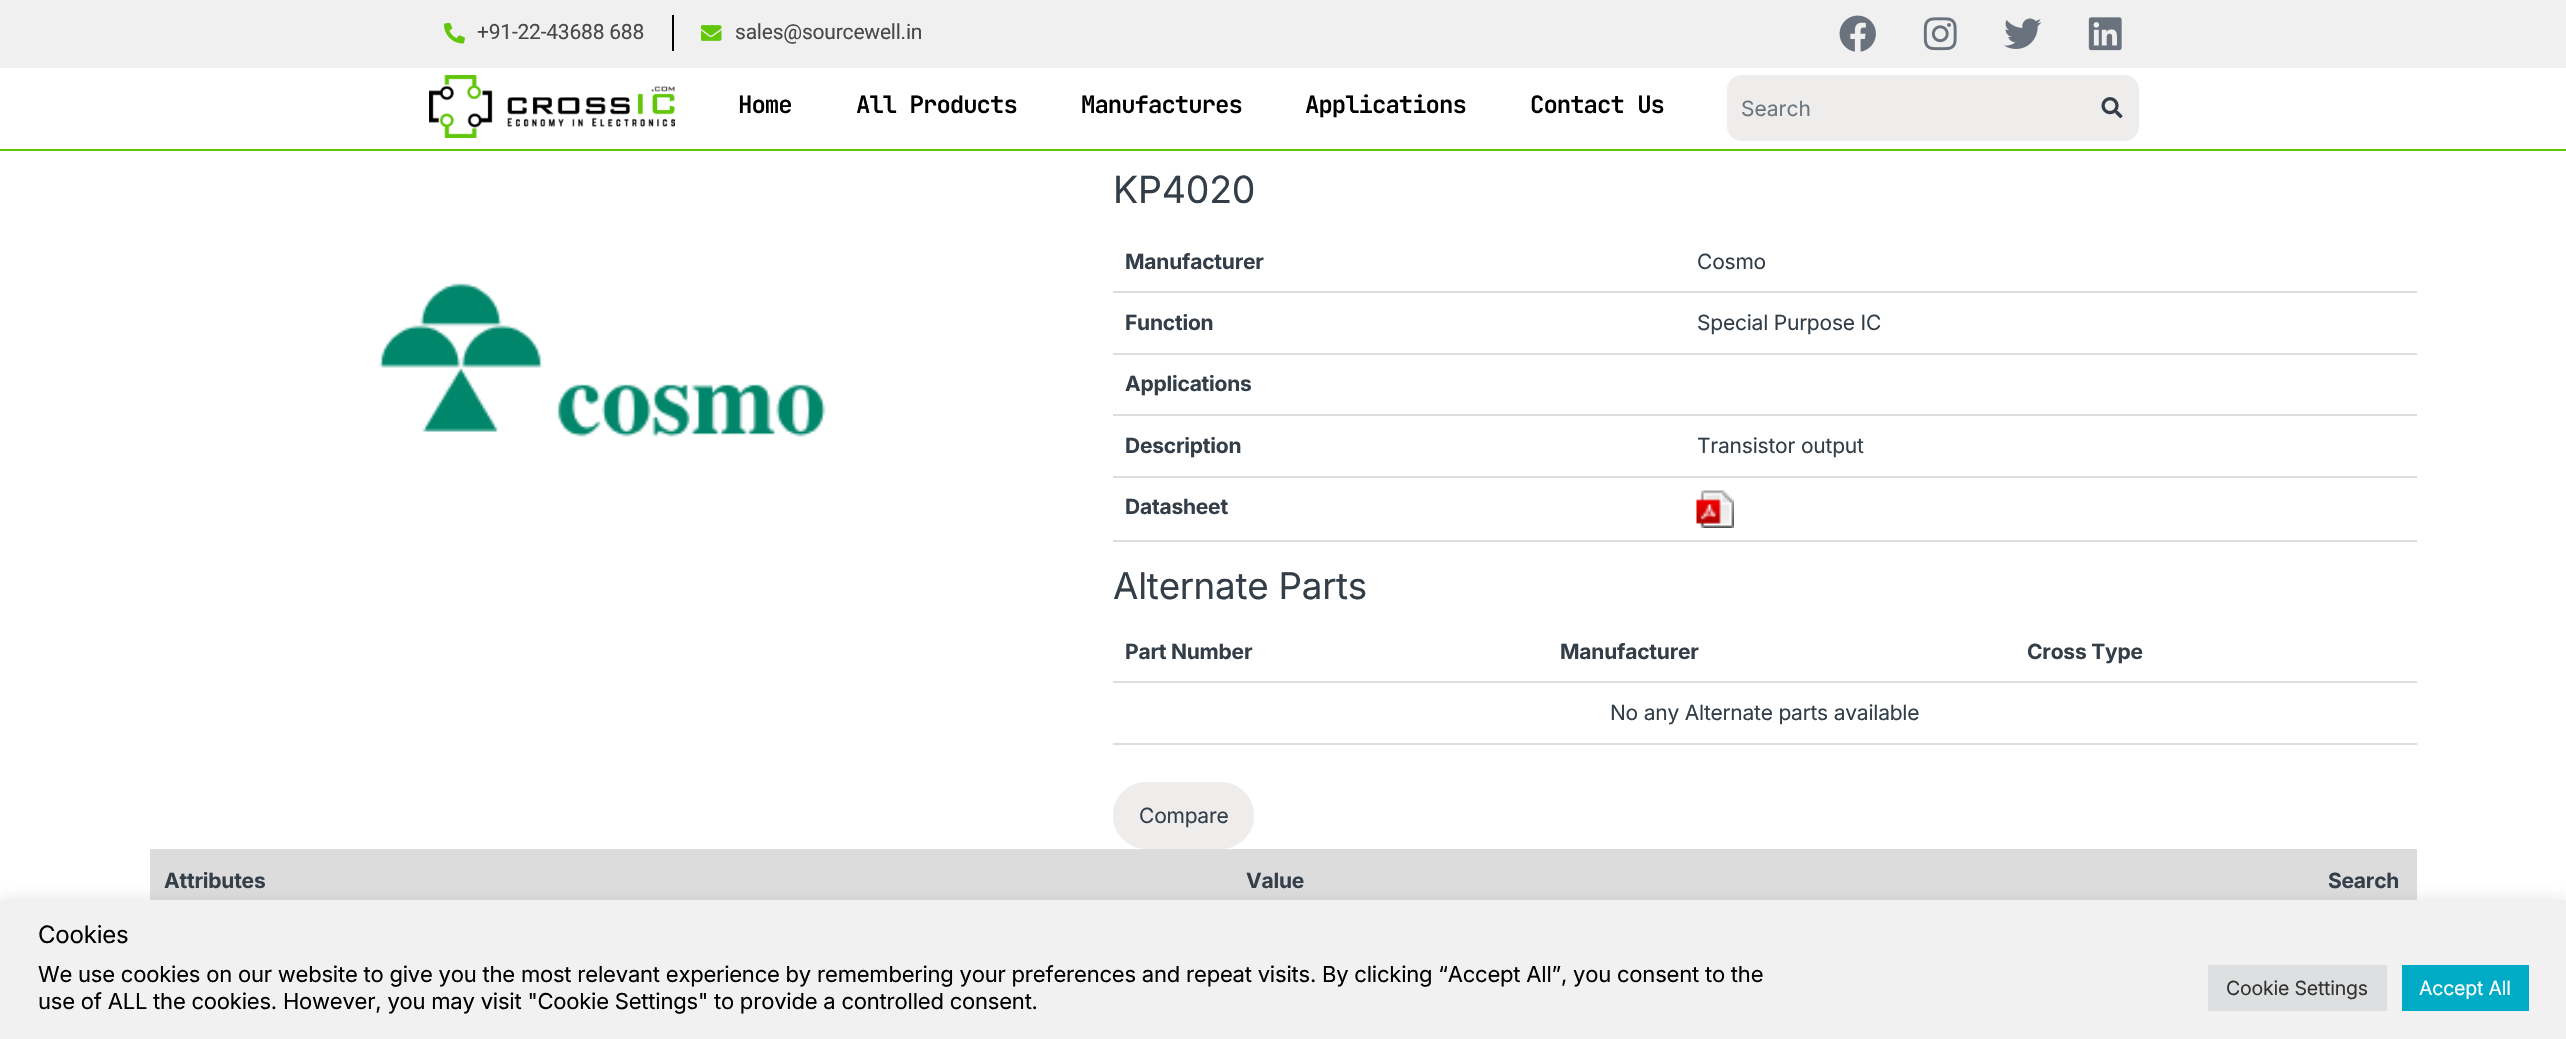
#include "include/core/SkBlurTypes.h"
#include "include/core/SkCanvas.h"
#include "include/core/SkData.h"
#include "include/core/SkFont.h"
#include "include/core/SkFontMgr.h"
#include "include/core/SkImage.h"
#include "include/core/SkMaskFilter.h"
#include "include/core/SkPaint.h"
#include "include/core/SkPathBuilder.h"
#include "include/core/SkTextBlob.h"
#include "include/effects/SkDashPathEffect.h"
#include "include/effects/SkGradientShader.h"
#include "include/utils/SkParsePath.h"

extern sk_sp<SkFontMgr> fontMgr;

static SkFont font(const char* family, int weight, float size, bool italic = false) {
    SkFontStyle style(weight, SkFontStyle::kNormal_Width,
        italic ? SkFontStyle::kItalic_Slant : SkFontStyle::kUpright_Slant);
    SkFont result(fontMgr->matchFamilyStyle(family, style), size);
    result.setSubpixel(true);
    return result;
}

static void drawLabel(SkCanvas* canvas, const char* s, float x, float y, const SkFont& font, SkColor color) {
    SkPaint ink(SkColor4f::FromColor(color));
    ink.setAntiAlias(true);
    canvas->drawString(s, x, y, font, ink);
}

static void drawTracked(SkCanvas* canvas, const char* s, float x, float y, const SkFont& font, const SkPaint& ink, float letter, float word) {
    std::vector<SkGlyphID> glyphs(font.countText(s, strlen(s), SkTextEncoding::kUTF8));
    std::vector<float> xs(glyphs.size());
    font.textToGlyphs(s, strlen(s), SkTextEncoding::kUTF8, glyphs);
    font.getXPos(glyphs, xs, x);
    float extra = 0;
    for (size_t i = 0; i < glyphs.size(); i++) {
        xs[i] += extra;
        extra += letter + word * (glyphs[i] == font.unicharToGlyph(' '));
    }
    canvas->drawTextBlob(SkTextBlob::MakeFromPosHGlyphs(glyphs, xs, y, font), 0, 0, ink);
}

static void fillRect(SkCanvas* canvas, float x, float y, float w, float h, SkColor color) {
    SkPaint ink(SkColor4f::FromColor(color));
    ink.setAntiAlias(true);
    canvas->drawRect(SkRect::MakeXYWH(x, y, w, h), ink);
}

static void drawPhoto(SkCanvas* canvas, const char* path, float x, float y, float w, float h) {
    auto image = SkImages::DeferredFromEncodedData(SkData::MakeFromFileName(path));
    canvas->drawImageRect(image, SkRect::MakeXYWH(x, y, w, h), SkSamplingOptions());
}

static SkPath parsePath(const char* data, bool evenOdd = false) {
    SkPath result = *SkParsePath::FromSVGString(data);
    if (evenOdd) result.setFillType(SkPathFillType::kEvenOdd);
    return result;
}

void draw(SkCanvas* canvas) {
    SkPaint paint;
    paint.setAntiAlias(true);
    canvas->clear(0xFFFFFFFF);
    fillRect(canvas, 0, 0, 2566, 68, 0xFFF0F0F0);
    drawPhoto(canvas, "assets/img1.png", 444, 23, 21, 21);
    SkFont font1 = font("Roboto", 400, 21);
    paint.setColor(0xFF484848);
    drawTracked(canvas, "+91-22-43688 688", 477, 39, font1, paint, -0.21f, 0);
    fillRect(canvas, 672, 15, 2, 36, 0xFF000000);
    drawPhoto(canvas, "assets/img2.png", 701, 25, 21, 16);
    drawTracked(canvas, "sales@sourcewell.in", 735, 39, font1, paint, -0.21f, 0);
    drawPhoto(canvas, "assets/img3.png", 1839, 15, 37, 37);
    drawPhoto(canvas, "assets/img4.png", 1923, 17, 34, 34);
    drawPhoto(canvas, "assets/img5.png", 2004, 18, 38, 31);
    drawPhoto(canvas, "assets/img6.png", 2088, 17, 34, 34);
    fillRect(canvas, 0, 149, 2566, 2, 0xFF62C60B);
    drawPhoto(canvas, "assets/img7.png", 429, 75, 246, 63);
    SkFont font2 = font("JetBrains Mono", 600, 24);
    paint.setColor(0xFF000000);
    drawTracked(canvas, "Home", 738, 113, font2, paint, -1, 0);
    drawTracked(canvas, "All Products", 856, 113, font2, paint, -1, 0);
    drawTracked(canvas, "Manufactures", 1081, 113, font2, paint, -1, 0);
    drawTracked(canvas, "Applications", 1305, 113, font2, paint, -1, 0);
    drawTracked(canvas, "Contact Us", 1530, 113, font2, paint, -1, 0);
    paint.setColor(0xFFEFECEC);
    canvas->drawPath(parsePath("M1742 75H2087V141H1742C1733.5 141 1727 134.5 1727 126V90C1727 81.5 1733.5 75 1742 75Z"), paint);
    SkFont font3 = font("Inter", 400, 21);
    drawLabel(canvas, "Search", 1741, 116, font3, 0xFF6C757D);
    canvas->drawPath(parsePath("M2087 75H2124C2132.5 75 2139 81.5 2139 90V126C2139 134.5 2132.5 141 2124 141H2087Z"), paint);
    drawPhoto(canvas, "assets/img8.png", 2101, 97, 22, 22);
    drawPhoto(canvas, "assets/img9.png", 379, 283, 447, 154);
    SkFont font4 = font("Inter", 400, 37.5f);
    paint.setColor(0xFF333E48);
    drawTracked(canvas, "KP4020", 1113, 203, font4, paint, -0.21f, 0);
    SkFont font5 = font("Inter", 700, 21);
    drawTracked(canvas, "Manufacturer", 1125, 269, font5, paint, -0.21f, 0);
    fillRect(canvas, 1113, 291, 1304, 2, 0xFFDDDDDD);
    drawTracked(canvas, "Cosmo", 1697, 269, font3, paint, -0.21f, 0);
    drawTracked(canvas, "Function", 1125, 330, font5, paint, -0.21f, 0);
    fillRect(canvas, 1113, 353, 1304, 2, 0xFFDDDDDD);
    drawTracked(canvas, "Special Purpose IC", 1697, 330, font3, paint, -0.21f, 0);
    drawTracked(canvas, "Applications", 1125, 391, font5, paint, -0.21f, 0);
    fillRect(canvas, 1113, 414, 1304, 2, 0xFFDDDDDD);
    drawTracked(canvas, "Description", 1125, 453, font5, paint, -0.21f, 0);
    fillRect(canvas, 1113, 476, 1304, 2, 0xFFDDDDDD);
    drawTracked(canvas, "Transistor output", 1697, 453, font3, paint, -0.21f, 0);
    fillRect(canvas, 1113, 540, 1304, 2, 0xFFDDDDDD);
    drawPhoto(canvas, "assets/img10.png", 1696, 490, 38, 38);
    drawTracked(canvas, "Datasheet", 1125, 514, font5, paint, -0.21f, 0);
    SkFont font6 = font("Inter", 400, 36.75f);
    drawTracked(canvas, "Alternate Parts", 1113, 599, font6, paint, -0.21f, 0);
    drawTracked(canvas, "Part Number", 1125, 659, font5, paint, -0.21f, 0);
    drawTracked(canvas, "Manufacturer", 1560, 659, font5, paint, -0.21f, 0);
    fillRect(canvas, 1113, 681, 1304, 2, 0xFFDDDDDD);
    drawTracked(canvas, "Cross Type", 2027, 659, font5, paint, -0.21f, 0);
    fillRect(canvas, 1113, 743, 1304, 2, 0xFFDDDDDD);
    drawTracked(canvas, "No any Alternate parts available", 1610, 720, font3, paint, -0.21f, 0);
    paint.setColor(0xFFEFECEC);
    canvas->drawRoundRect(SkRect::MakeXYWH(1114, 783, 139, 65), 32, 32, paint);
    paint.setStroke(true);
    paint.setStrokeWidth(2);
    canvas->drawRoundRect(SkRect::MakeXYWH(1114, 783, 139, 65), 32, 32, paint);
    paint.setStroke(false);
    paint.setColor(0xFF333E48);
    drawTracked(canvas, "Compare", 1139, 823, font3, paint, -0.21f, 0);
    fillRect(canvas, 152, 851, 1081, 49, 0xFFDCDCDC);
    fillRect(canvas, 150, 849, 1083, 2, 0xFFDDDDDD);
    fillRect(canvas, 150, 849, 2, 51, 0xFFDDDDDD);
    drawTracked(canvas, "Attributes", 164, 888, font5, paint, -0.21f, 0);
    fillRect(canvas, 1233, 849, 1184, 51, 0xFFDCDCDC);
    drawTracked(canvas, "Value", 1246, 888, font5, paint, -0.21f, 0);
    drawTracked(canvas, "Search", 2328, 888, font5, paint, -0.21f, 0);
    paint.setColor(0x4DACABAB);
    paint.setMaskFilter(SkMaskFilter::MakeBlur(kNormal_SkBlurStyle, 7.5f));
    canvas->drawRect(SkRect::MakeXYWH(0, 899, 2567, 139), paint);
    paint.setMaskFilter(nullptr);
    fillRect(canvas, 0, 900, 2566, 139, 0xFFF1F1F1);
    SkFont font7 = font("Inter", 400, 24);
    paint.setColor(0xFF000000);
    drawTracked(canvas, "Cookies", 38, 943, font7, paint, -0.21f, 0);
    SkFont font8 = font("Inter", 400, 22);
    drawTracked(canvas, "We use cookies on our website to give you the most relevant experience by remembering your preferences and repeat visits. By clicking “Accept All”, you consent to the", 38, 982, font8, paint, -0.21f, 0);
    drawTracked(canvas, "use of ALL the cookies. However, you may visit \"Cookie Settings\" to provide a controlled consent.", 38, 1009, font8, paint, -0.21f, 0);
    fillRect(canvas, 2208, 965, 179, 46, 0xFFDEDFE0);
    SkFont font9 = font("Inter", 400, 19.5f);
    paint.setColor(0xFF333333);
    drawTracked(canvas, "Cookie Settings", 2226, 995, font9, paint, -0.21f, 0);
    fillRect(canvas, 2402, 965, 127, 46, 0xFF00ABC5);
    paint.setColor(0xFFFFFFFF);
    drawTracked(canvas, "Accept All", 2419, 995, font9, paint, -0.21f, 0);
}
